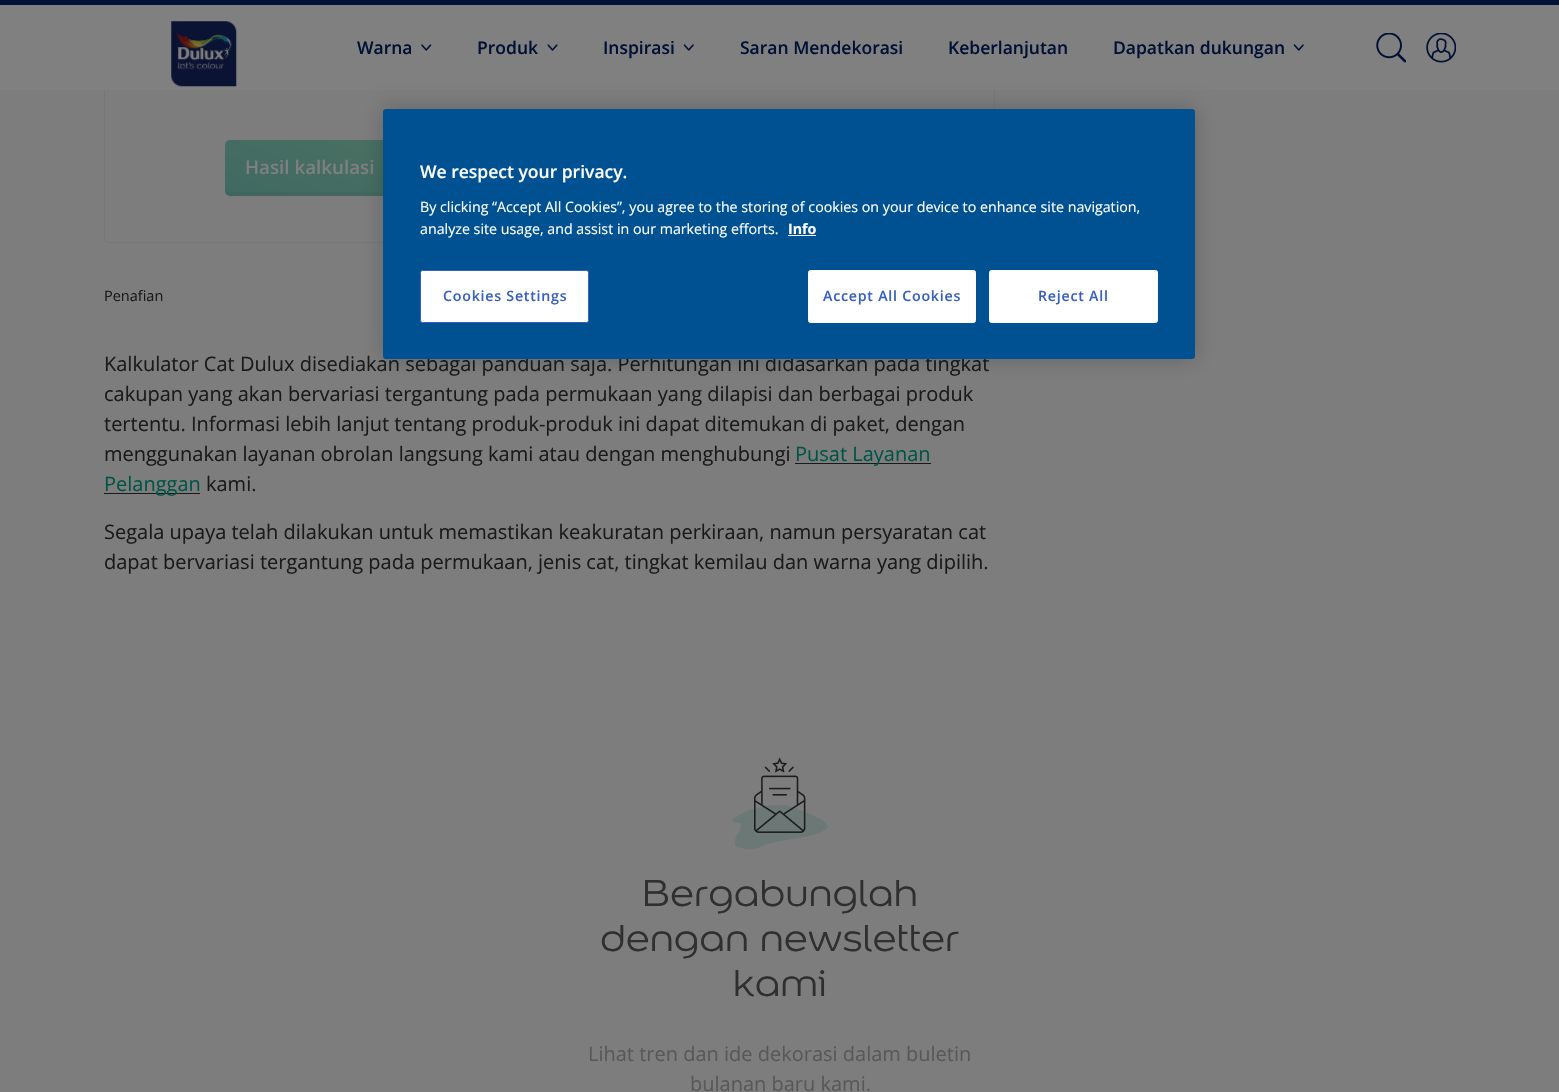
#include "include/core/SkBlurTypes.h"
#include "include/core/SkCanvas.h"
#include "include/core/SkData.h"
#include "include/core/SkFont.h"
#include "include/core/SkFontMgr.h"
#include "include/core/SkImage.h"
#include "include/core/SkMaskFilter.h"
#include "include/core/SkPaint.h"
#include "include/core/SkPathBuilder.h"
#include "include/core/SkTextBlob.h"
#include "include/effects/SkDashPathEffect.h"
#include "include/effects/SkGradientShader.h"
#include "include/utils/SkParsePath.h"

extern sk_sp<SkFontMgr> fontMgr;

static SkFont font(const char* family, int weight, float size, bool italic = false) {
    SkFontStyle style(weight, SkFontStyle::kNormal_Width,
        italic ? SkFontStyle::kItalic_Slant : SkFontStyle::kUpright_Slant);
    SkFont result(fontMgr->matchFamilyStyle(family, style), size);
    result.setSubpixel(true);
    return result;
}

static void drawLabel(SkCanvas* canvas, const char* s, float x, float y, const SkFont& font, SkColor color) {
    SkPaint ink(SkColor4f::FromColor(color));
    ink.setAntiAlias(true);
    canvas->drawString(s, x, y, font, ink);
}

static void drawTracked(SkCanvas* canvas, const char* s, float x, float y, const SkFont& font, const SkPaint& ink, float letter, float word) {
    std::vector<SkGlyphID> glyphs(font.countText(s, strlen(s), SkTextEncoding::kUTF8));
    std::vector<float> xs(glyphs.size());
    font.textToGlyphs(s, strlen(s), SkTextEncoding::kUTF8, glyphs);
    font.getXPos(glyphs, xs, x);
    float extra = 0;
    for (size_t i = 0; i < glyphs.size(); i++) {
        xs[i] += extra;
        extra += letter + word * (glyphs[i] == font.unicharToGlyph(' '));
    }
    canvas->drawTextBlob(SkTextBlob::MakeFromPosHGlyphs(glyphs, xs, y, font), 0, 0, ink);
}

static void fillRect(SkCanvas* canvas, float x, float y, float w, float h, SkColor color) {
    SkPaint ink(SkColor4f::FromColor(color));
    ink.setAntiAlias(true);
    canvas->drawRect(SkRect::MakeXYWH(x, y, w, h), ink);
}

static void fillRRect(SkCanvas* canvas, float x, float y, float w, float h, float radius, SkColor color) {
    SkPaint ink(SkColor4f::FromColor(color));
    ink.setAntiAlias(true);
    canvas->drawRoundRect(SkRect::MakeXYWH(x, y, w, h), radius, radius, ink);
}

static void drawPhoto(SkCanvas* canvas, const char* path, float x, float y, float w, float h) {
    auto image = SkImages::DeferredFromEncodedData(SkData::MakeFromFileName(path));
    canvas->drawImageRect(image, SkRect::MakeXYWH(x, y, w, h), SkSamplingOptions());
}

static SkPath parsePath(const char* data, bool evenOdd = false) {
    SkPath result = *SkParsePath::FromSVGString(data);
    if (evenOdd) result.setFillType(SkPathFillType::kEvenOdd);
    return result;
}

void draw(SkCanvas* canvas) {
    SkPaint paint;
    paint.setAntiAlias(true);
    canvas->clear(0xFF7D7D7D);
    paint.setStroke(true);
    paint.setStrokeWidth(1);
    paint.setColor(0xFF777777);
    canvas->drawRoundRect(SkRect::MakeXYWH(104.5f, -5.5f, 890, 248), 4.5f, 4.5f, paint);
    fillRect(canvas, 0, 5, 1559, 85, 0xFF808080);
    fillRect(canvas, 0, 0, 1559, 5, 0xFF011135);
    drawPhoto(canvas, "assets/img1.png", 171, 21, 66, 66);
    SkFont font1 = font("Open Sans", 600, 17.5f);
    drawLabel(canvas, "Warna", 357, 54, font1, 0xFF011135);
    drawPhoto(canvas, "assets/img2.png", 421, 44, 11, 7);
    drawLabel(canvas, "Produk", 477, 54, font1, 0xFF011135);
    drawPhoto(canvas, "assets/img3.png", 547, 44, 11, 7);
    drawLabel(canvas, "Inspirasi", 603, 54, font1, 0xFF011135);
    drawPhoto(canvas, "assets/img4.png", 683, 44, 11, 7);
    drawLabel(canvas, "Saran Mendekorasi", 740, 54, font1, 0xFF011135);
    drawLabel(canvas, "Keberlanjutan", 948, 54, font1, 0xFF011135);
    drawLabel(canvas, "Dapatkan dukungan", 1113, 54, font1, 0xFF011135);
    drawPhoto(canvas, "assets/img4.png", 1293, 44, 11, 7);
    drawPhoto(canvas, "assets/img5.png", 1376, 33, 30, 30);
    drawPhoto(canvas, "assets/img6.png", 1426, 33, 30, 30);
    paint.setStroke(false);
    {
        const SkColor colors[] = {0xFF3F6962, 0xFF4B7062};
        const float stops[] = {0, 1};
        const SkPoint ends[] = {{291, 220}, {329, 116}};
        paint.setShader(SkGradientShader::MakeLinear(ends, colors, stops, 2, SkTileMode::kClamp));
        paint.setAlpha(255);
    }
    canvas->drawRoundRect(SkRect::MakeXYWH(225, 140, 170, 56), 5, 5, paint);
    paint.setShader(nullptr);
    paint.setColor(0x1A3F3F3F);
    canvas->drawPath(parsePath("M225 188V191C225 194 227 196 230 196H390C393 196 395 194 395 191V188C395 190 393 192 390 192H230C227 192 225 190 225 188Z"), paint);
    SkFont font2 = font("Open Sans", 600, 18.75f);
    drawLabel(canvas, "Hasil kalkulasi", 245, 174, font2, 0xFF7F7F7F);
    SkFont font3 = font("Open Sans", 400, 14.5f);
    drawLabel(canvas, "Penafian", 104, 301, font3, 0xFF1A1A1A);
    SkFont font4 = font("Open Sans", 400, 20);
    drawLabel(canvas, "Kalkulator Cat Dulux disediakan sebagai panduan saja. Perhitungan ini didasarkan pada tingkat", 104, 371, font4, 0xFF1A1A1A);
    drawLabel(canvas, "cakupan yang akan bervariasi tergantung pada permukaan yang dilapisi dan berbagai produk", 104, 401, font4, 0xFF1A1A1A);
    drawLabel(canvas, "tertentu. Informasi lebih lanjut tentang produk-produk ini dapat ditemukan di paket, dengan", 104, 431, font4, 0xFF1A1A1A);
    drawLabel(canvas, "menggunakan layanan obrolan langsung kami atau dengan menghubungi", 104, 461, font4, 0xFF1A1A1A);
    fillRect(canvas, 795, 463, 136, 1, 0xFF1A1A1A);
    drawLabel(canvas, "Pusat Layanan", 795, 461, font4, 0xFF005447);
    fillRect(canvas, 104, 493, 96, 1, 0xFF1A1A1A);
    drawLabel(canvas, "Pelanggan", 104, 491, font4, 0xFF005447);
    drawLabel(canvas, "kami.", 206, 491, font4, 0xFF1A1A1A);
    drawLabel(canvas, "Segala upaya telah dilakukan untuk memastikan keakuratan perkiraan, namun persyaratan cat", 104, 539, font4, 0xFF1A1A1A);
    drawLabel(canvas, "dapat bervariasi tergantung pada permukaan, jenis cat, tingkat kemilau dan warna yang dipilih.", 104, 569, font4, 0xFF1A1A1A);
    drawPhoto(canvas, "assets/img7.png", 732, 757, 96, 93);
    SkFont font5 = font("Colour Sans", 400, 40);
    drawLabel(canvas, "Bergabunglah", 642, 906, font5, 0xFF2F2F2F);
    drawLabel(canvas, "dengan newsletter", 600, 951, font5, 0xFF2F2F2F);
    drawLabel(canvas, "kami", 733, 996, font5, 0xFF2F2F2F);
    drawLabel(canvas, "Lihat tren dan ide dekorasi dalam buletin", 588, 1061, font4, 0xFF585858);
    drawLabel(canvas, "bulanan baru kami.", 690, 1091, font4, 0xFF585858);
    paint.setColor(0x33000000);
    paint.setMaskFilter(SkMaskFilter::MakeBlur(kNormal_SkBlurStyle, 11));
    canvas->drawRoundRect(SkRect::MakeXYWH(383, 109, 812, 250), 3, 3, paint);
    paint.setMaskFilter(nullptr);
    fillRRect(canvas, 383, 109, 812, 250, 3, 0xFF005192);
    drawLabel(canvas, "We respect your privacy.", 420, 178, font1, 0xFFFFFFFF);
    SkFont font6 = font("Open Sans", 400, 14.23f);
    drawLabel(canvas, "By clicking “Accept All Cookies”, you agree to the storing of cookies on your device to enhance site navigation,", 420, 212, font6, 0xFFFFFFFF);
    drawLabel(canvas, "analyze site usage, and assist in our marketing efforts.", 420, 234, font6, 0xFFFFFFFF);
    SkFont font7 = font("Open Sans", 700, 14.23f);
    drawLabel(canvas, "Info", 788, 234, font7, 0xFFFFFFFF);
    fillRect(canvas, 788, 235, 28, 1, 0xFFFAFBFF);
    paint.setColor(0xFFFFFFFF);
    canvas->drawRoundRect(SkRect::MakeXYWH(420.5f, 270.5f, 168, 52), 2, 2, paint);
    paint.setStroke(true);
    paint.setColor(0xFF3860BE);
    canvas->drawRoundRect(SkRect::MakeXYWH(420.5f, 270.5f, 168, 52), 2, 2, paint);
    SkFont font8 = font("Open Sans", 600, 14.23f);
    paint.setStroke(false);
    drawTracked(canvas, "Cookies Settings", 443, 301, font8, paint, 0.75f, 0);
    paint.setColor(0xFFFFFFFF);
    canvas->drawRoundRect(SkRect::MakeXYWH(808.5f, 270.5f, 167, 52), 2, 2, paint);
    paint.setStroke(true);
    canvas->drawRoundRect(SkRect::MakeXYWH(808.5f, 270.5f, 167, 52), 2, 2, paint);
    paint.setStroke(false);
    paint.setColor(0xFF3860BE);
    drawTracked(canvas, "Accept All Cookies", 823, 301, font8, paint, 0.75f, 0);
    paint.setColor(0xFFFFFFFF);
    canvas->drawRoundRect(SkRect::MakeXYWH(989.5f, 270.5f, 168, 52), 2, 2, paint);
    paint.setStroke(true);
    canvas->drawRoundRect(SkRect::MakeXYWH(989.5f, 270.5f, 168, 52), 2, 2, paint);
    paint.setStroke(false);
    paint.setColor(0xFF3860BE);
    drawTracked(canvas, "Reject All", 1038, 301, font8, paint, 0.75f, 0);
}
